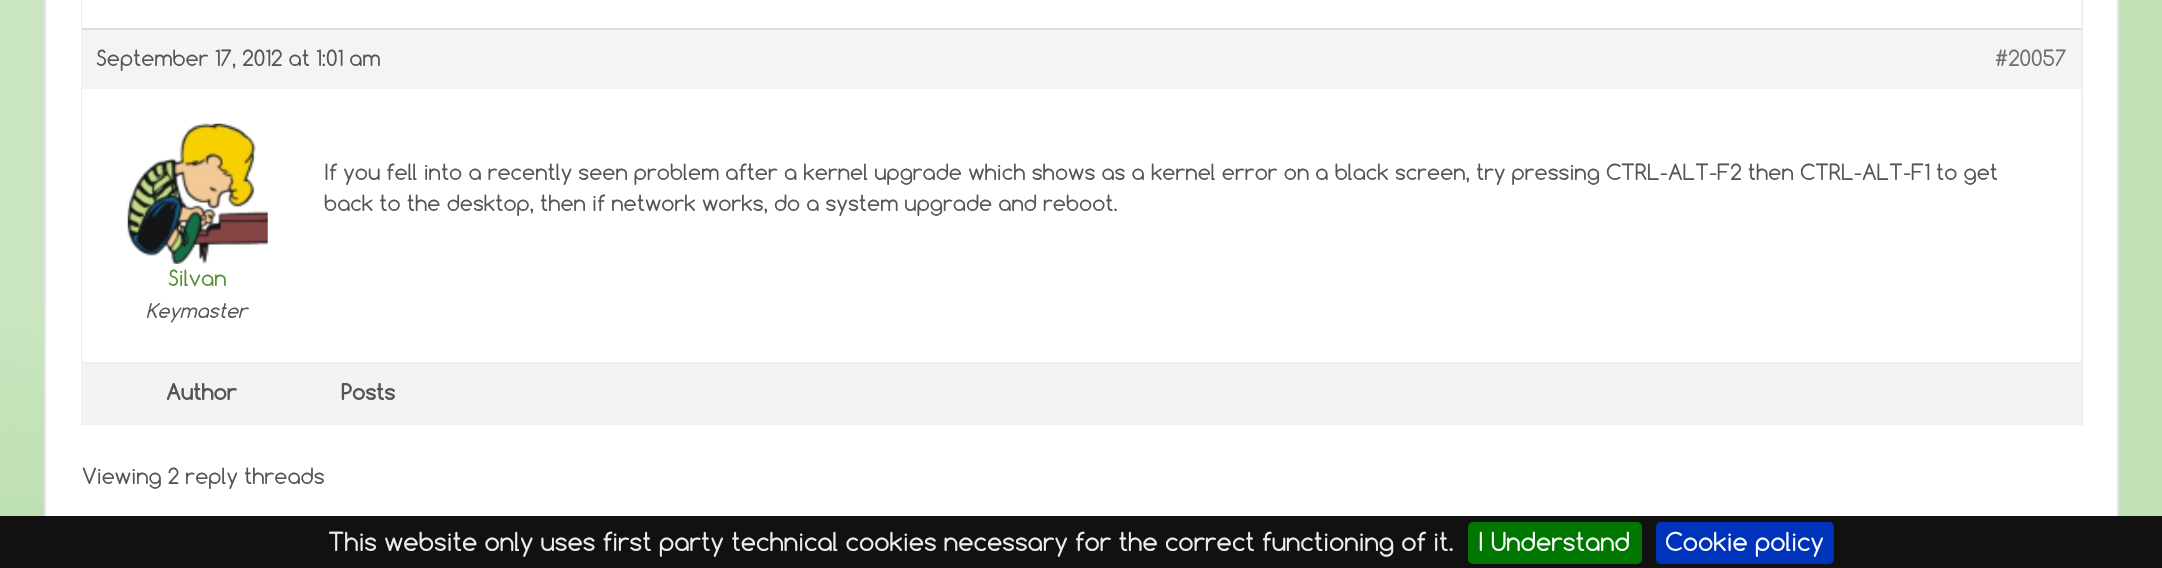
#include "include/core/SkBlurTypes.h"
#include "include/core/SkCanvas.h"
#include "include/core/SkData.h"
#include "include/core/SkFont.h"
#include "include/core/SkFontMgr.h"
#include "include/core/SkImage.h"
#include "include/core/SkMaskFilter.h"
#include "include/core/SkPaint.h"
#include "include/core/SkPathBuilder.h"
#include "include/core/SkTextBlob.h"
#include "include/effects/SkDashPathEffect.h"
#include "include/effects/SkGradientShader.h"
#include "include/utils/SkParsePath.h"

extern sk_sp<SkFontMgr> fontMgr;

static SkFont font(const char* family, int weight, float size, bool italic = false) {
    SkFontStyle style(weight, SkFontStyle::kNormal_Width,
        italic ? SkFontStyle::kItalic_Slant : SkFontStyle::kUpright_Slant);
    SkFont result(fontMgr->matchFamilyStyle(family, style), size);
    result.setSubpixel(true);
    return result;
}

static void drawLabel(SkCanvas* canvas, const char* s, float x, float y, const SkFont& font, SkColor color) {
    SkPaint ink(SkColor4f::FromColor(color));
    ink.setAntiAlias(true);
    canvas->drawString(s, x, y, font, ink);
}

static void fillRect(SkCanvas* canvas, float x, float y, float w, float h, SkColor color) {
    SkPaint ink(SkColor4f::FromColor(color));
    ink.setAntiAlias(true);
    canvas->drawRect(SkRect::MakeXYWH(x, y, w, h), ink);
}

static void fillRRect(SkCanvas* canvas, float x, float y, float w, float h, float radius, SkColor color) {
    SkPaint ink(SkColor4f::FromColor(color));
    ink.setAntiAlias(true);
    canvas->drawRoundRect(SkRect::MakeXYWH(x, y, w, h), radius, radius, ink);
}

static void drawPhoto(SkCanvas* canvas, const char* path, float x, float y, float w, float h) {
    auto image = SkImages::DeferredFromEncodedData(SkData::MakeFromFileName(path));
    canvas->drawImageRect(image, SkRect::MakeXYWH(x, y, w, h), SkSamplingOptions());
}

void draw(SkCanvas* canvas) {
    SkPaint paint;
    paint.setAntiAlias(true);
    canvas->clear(0xFFFFFFFF);
    drawPhoto(canvas, "assets/img1.png", 0, 0, 2162, 516);
    fillRect(canvas, 46, 0, 2071, 516, 0xFFFFFFFF);
    paint.setStroke(true);
    paint.setStrokeWidth(2);
    paint.setColor(0xFFE5E5E5);
    canvas->drawRect(SkRect::MakeXYWH(45, -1, 2073, 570), paint);
    paint.setColor(0xFFEEEEEE);
    canvas->drawRect(SkRect::MakeXYWH(82, -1, 2000, 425), paint);
    fillRect(canvas, 82, 0, 1, 28, 0xFFFFFFFF);
    fillRect(canvas, 82, 30, 1999, 59, 0xFFF4F4F4);
    fillRect(canvas, 82, 28, 1999, 2, 0xFFDDDDDD);
    SkFont font1 = font("Comfortaa", 400, 21);
    drawLabel(canvas, "September 17, 2012 at 1:01 am", 96, 66, font1, 0xFF555555);
    drawLabel(canvas, "#20057", 1995, 66, font1, 0xFF707070);
    fillRect(canvas, 82, 89, 1, 273, 0xFFFFFFFF);
    drawLabel(canvas, "If you fell into a recently seen problem after a kernel upgrade which shows as a kernel error on a black screen, try pressing CTRL-ALT-F2 then CTRL-ALT-F1 to get", 324, 180, font1, 0xFF555555);
    drawLabel(canvas, "back to the desktop, then if network works, do a system upgrade and reboot.", 324, 211, font1, 0xFF555555);
    drawPhoto(canvas, "assets/img2.png", 127, 123, 141, 141);
    drawLabel(canvas, "Silvan", 168, 286, font1, 0xFF599037);
    SkFont font2 = font("Comfortaa", 400, 19.25f, true);
    drawLabel(canvas, "Keymaster", 146, 318, font2, 0xFF555555);
    fillRect(canvas, 82, 364, 1999, 60, 0xFFF3F3F3);
    fillRect(canvas, 82, 362, 1999, 2, 0xFFEEEEEE);
    SkFont font3 = font("Comfortaa", 700, 21);
    drawLabel(canvas, "Author", 166, 400, font3, 0xFF555555);
    drawLabel(canvas, "Posts", 341, 400, font3, 0xFF555555);
    drawLabel(canvas, "Viewing 2 reply threads", 82, 484, font1, 0xFF555555);
    fillRect(canvas, 0, 516, 2162, 52, 0xFF111111);
    SkFont font4 = font("Comfortaa", 400, 24.5f);
    drawLabel(canvas, "This website only uses first party technical cookies necessary for the correct functioning of it.", 328, 551, font4, 0xFFEEEEEE);
    fillRRect(canvas, 1468, 522, 174, 42, 5, 0xFF007700);
    drawLabel(canvas, "I Understand", 1478, 551, font4, 0xFFFFFFFF);
    fillRRect(canvas, 1656, 522, 178, 42, 5, 0xFF0033BB);
    drawLabel(canvas, "Cookie policy", 1665, 551, font4, 0xFFFFFFFF);
}
